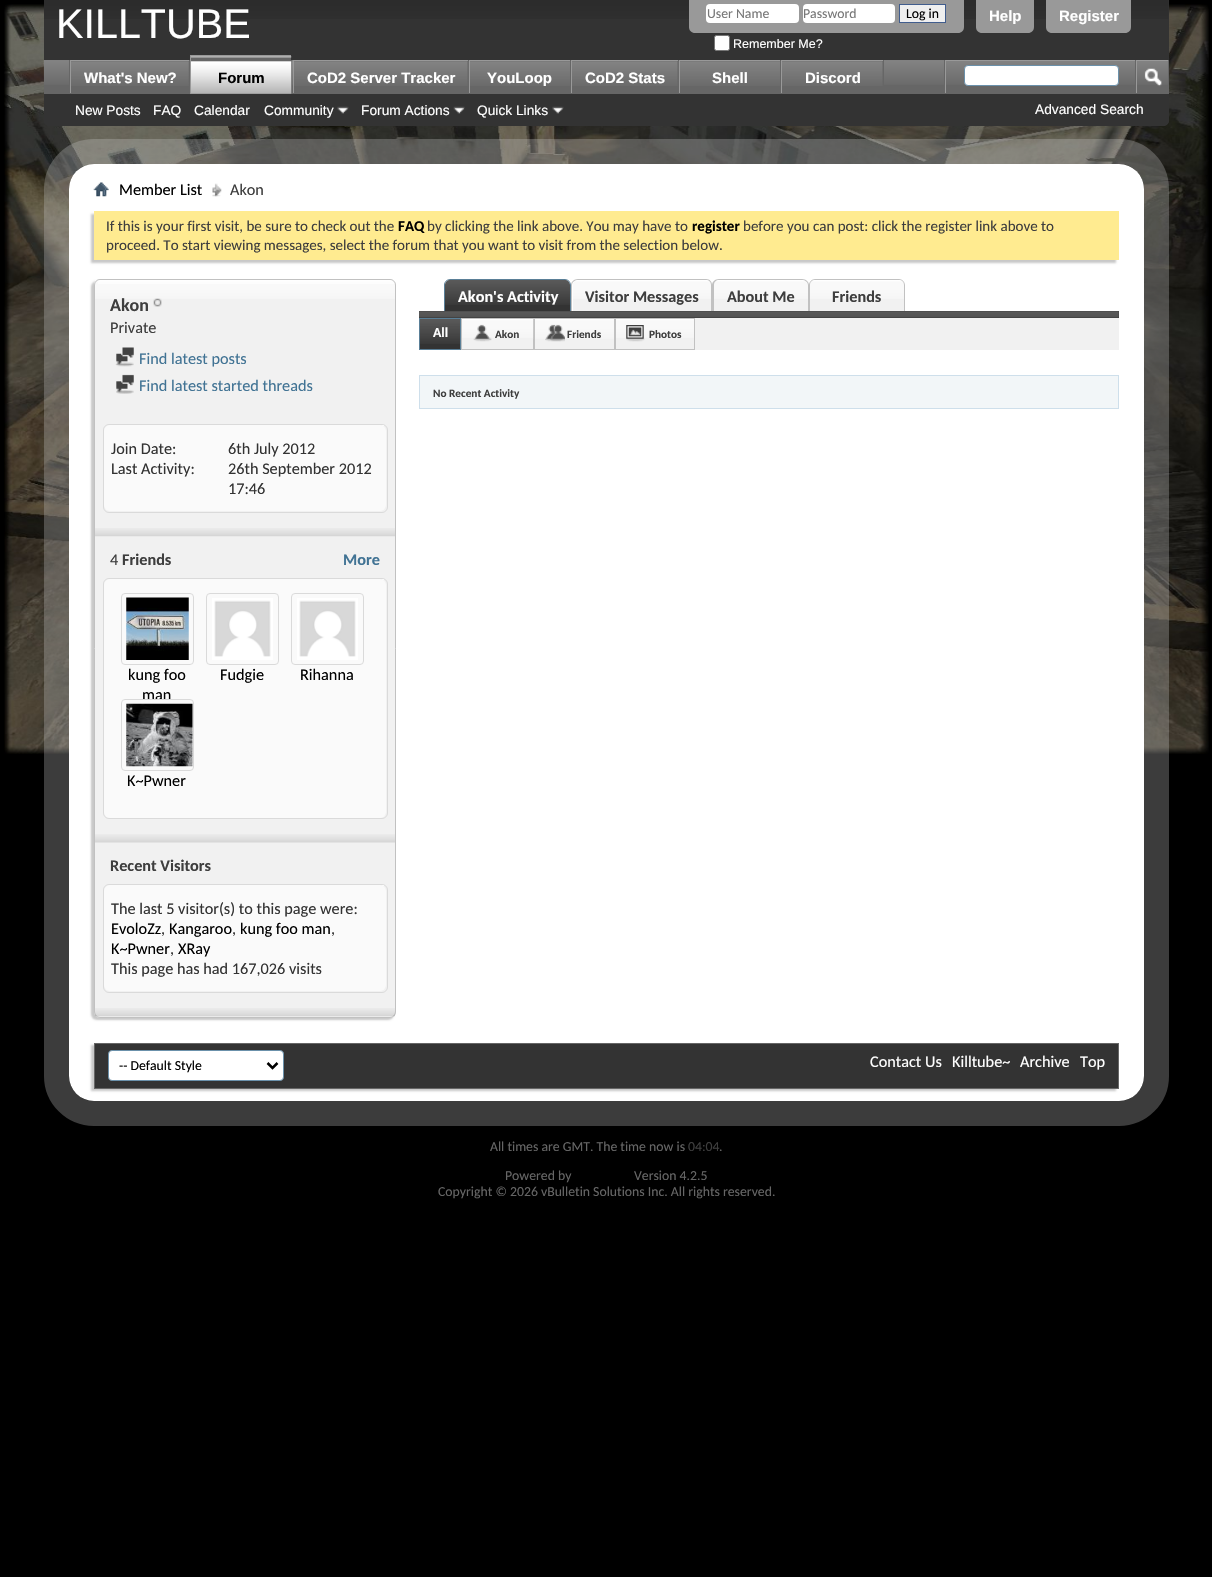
#include "include/core/SkBlurTypes.h"
#include "include/core/SkCanvas.h"
#include "include/core/SkData.h"
#include "include/core/SkFont.h"
#include "include/core/SkFontMgr.h"
#include "include/core/SkImage.h"
#include "include/core/SkMaskFilter.h"
#include "include/core/SkPaint.h"
#include "include/core/SkPathBuilder.h"
#include "include/core/SkTextBlob.h"
#include "include/effects/SkDashPathEffect.h"
#include "include/effects/SkGradientShader.h"
#include "include/utils/SkParsePath.h"

extern sk_sp<SkFontMgr> fontMgr;

static SkFont font(const char* family, int weight, float size, bool italic = false) {
    SkFontStyle style(weight, SkFontStyle::kNormal_Width,
        italic ? SkFontStyle::kItalic_Slant : SkFontStyle::kUpright_Slant);
    SkFont result(fontMgr->matchFamilyStyle(family, style), size);
    result.setSubpixel(true);
    return result;
}

static void drawLabel(SkCanvas* canvas, const char* s, float x, float y, const SkFont& font, SkColor color) {
    SkPaint ink(SkColor4f::FromColor(color));
    ink.setAntiAlias(true);
    canvas->drawString(s, x, y, font, ink);
}

static void fillRect(SkCanvas* canvas, float x, float y, float w, float h, SkColor color) {
    SkPaint ink(SkColor4f::FromColor(color));
    ink.setAntiAlias(true);
    canvas->drawRect(SkRect::MakeXYWH(x, y, w, h), ink);
}

static void fillRRect(SkCanvas* canvas, float x, float y, float w, float h, float radius, SkColor color) {
    SkPaint ink(SkColor4f::FromColor(color));
    ink.setAntiAlias(true);
    canvas->drawRoundRect(SkRect::MakeXYWH(x, y, w, h), radius, radius, ink);
}

static void drawPhoto(SkCanvas* canvas, const char* path, float x, float y, float w, float h) {
    auto image = SkImages::DeferredFromEncodedData(SkData::MakeFromFileName(path));
    canvas->drawImageRect(image, SkRect::MakeXYWH(x, y, w, h), SkSamplingOptions());
}

static SkPath parsePath(const char* data, bool evenOdd = false) {
    SkPath result = *SkParsePath::FromSVGString(data);
    if (evenOdd) result.setFillType(SkPathFillType::kEvenOdd);
    return result;
}

void draw(SkCanvas* canvas) {
    SkPaint paint;
    paint.setAntiAlias(true);
    canvas->clear(0xFF000000);
    drawPhoto(canvas, "assets/img1.png", 4, 4, 1205, 750);
    paint.setColor(0xFF333333);
    canvas->drawPath(parsePath("M44 0H1169V120C1169 123.5 1166.5 126 1163 126H50C46.5 126 44 123.5 44 120Z"), paint);
    drawPhoto(canvas, "assets/img2.png", 44, 0, 1125, 19);
    SkFont font1 = font("Liberation Sans", 400, 41.25f);
    drawLabel(canvas, "KILLTUBE", 56, 38, font1, 0xFFFFFFFF);
    paint.setColor(0xFF999999);
    canvas->drawPath(parsePath("M689 0H964V27C964 30.5 961.5 33 958 33H695C691.5 33 689 30.5 689 27Z"), paint);
    fillRRect(canvas, 706, 4, 93, 19, 4, 0xFFFFFFFF);
    SkFont font2 = font("Carlito", 400, 13.75f);
    drawLabel(canvas, "User Name", 707, 18, font2, 0xFF777777);
    fillRRect(canvas, 803, 4, 92, 19, 4, 0xFFFFFFFF);
    drawLabel(canvas, "Password", 803, 18, font2, 0xFF777777);
    paint.setColor(0xFFEFEFEF);
    canvas->drawRect(SkRect::MakeXYWH(899.5f, 4.5f, 46, 18), paint);
    paint.setStroke(true);
    paint.setStrokeWidth(1);
    paint.setColor(0xFF415D8D);
    canvas->drawRect(SkRect::MakeXYWH(899.5f, 4.5f, 46, 18), paint);
    drawLabel(canvas, "Log in", 906, 18, font2, 0xFF000000);
    paint.setStroke(false);
    paint.setColor(0xFFFFFFFF);
    canvas->drawRoundRect(SkRect::MakeXYWH(714.5f, 35.5f, 15, 15), 2, 2, paint);
    paint.setStroke(true);
    paint.setColor(0xFF767676);
    canvas->drawRoundRect(SkRect::MakeXYWH(714.5f, 35.5f, 15, 15), 2, 2, paint);
    SkFont font3 = font("Liberation Sans", 400, 12.5f);
    drawLabel(canvas, "Remember Me?", 733, 48, font3, 0xFFFFFFFF);
    paint.setStroke(false);
    paint.setColor(0xFF999999);
    canvas->drawPath(parsePath("M976 0H1034V27C1034 30.5 1031.5 33 1028 33H982C978.5 33 976 30.5 976 27Z"), paint);
    SkFont font4 = font("Liberation Sans", 700, 15);
    drawLabel(canvas, "Help", 989, 21, font4, 0xFFFFFFFF);
    canvas->drawPath(parsePath("M1046 0H1131V27C1131 30.5 1128.5 33 1125 33H1052C1048.5 33 1046 30.5 1046 27Z"), paint);
    drawLabel(canvas, "Register", 1059, 21, font4, 0xFFFFFFFF);
    paint.setColor(0xFF333333);
    canvas->drawPath(parsePath("M44 60H1169V120C1169 123.5 1166.5 126 1163 126H50C46.5 126 44 123.5 44 120Z"), paint);
    fillRect(canvas, 44, 60, 1125, 33, 0xFF666666);
    drawPhoto(canvas, "assets/img3.png", 43, 60, 1125, 25);
    fillRect(canvas, 189, 60, 1, 34, 0xFF666666);
    fillRect(canvas, 69, 60, 1, 34, 0xFF666666);
    fillRect(canvas, 71, 61, 118, 24, 0xFF666666);
    drawPhoto(canvas, "assets/img4.png", 71, 61, 118, 25);
    fillRect(canvas, 70, 60, 119, 1, 0xFF999999);
    fillRect(canvas, 70, 60, 1, 34, 0xFF999999);
    drawLabel(canvas, "What's New?", 84, 83, font4, 0xFFFFFFFF);
    fillRect(canvas, 291, 60, 1, 33, 0xFF666666);
    fillRect(canvas, 191, 56, 100, 29, 0xFF666666);
    fillRect(canvas, 468, 60, 1, 34, 0xFF666666);
    fillRect(canvas, 294, 61, 174, 24, 0xFF666666);
    drawPhoto(canvas, "assets/img6.png", 292, 61, 176, 25);
    fillRect(canvas, 293, 60, 175, 1, 0xFF999999);
    fillRect(canvas, 293, 60, 1, 34, 0xFF999999);
    fillRect(canvas, 570, 60, 1, 34, 0xFF666666);
    fillRect(canvas, 470, 61, 100, 24, 0xFF666666);
    drawPhoto(canvas, "assets/img7.png", 468, 61, 102, 25);
    fillRect(canvas, 469, 60, 101, 1, 0xFF999999);
    fillRect(canvas, 469, 60, 1, 34, 0xFF999999);
    fillRect(canvas, 678, 60, 1, 34, 0xFF666666);
    fillRect(canvas, 571, 60, 107, 1, 0xFF999999);
    fillRect(canvas, 571, 60, 1, 34, 0xFF999999);
    fillRect(canvas, 780, 60, 1, 34, 0xFF666666);
    fillRect(canvas, 680, 61, 100, 24, 0xFF666666);
    drawPhoto(canvas, "assets/img7.png", 678, 61, 102, 25);
    fillRect(canvas, 679, 60, 101, 1, 0xFF999999);
    fillRect(canvas, 679, 60, 1, 34, 0xFF999999);
    fillRect(canvas, 883, 60, 1, 34, 0xFF666666);
    fillRect(canvas, 781, 60, 102, 1, 0xFF999999);
    fillRect(canvas, 781, 60, 1, 34, 0xFF999999);
    fillRect(canvas, 44, 93, 1125, 1, 0xFF666666);
    drawPhoto(canvas, "assets/img5.png", 191, 56, 101, 38);
    fillRect(canvas, 190, 55, 101, 1, 0xFF999999);
    fillRect(canvas, 190, 55, 1, 39, 0xFF999999);
    drawLabel(canvas, "Forum", 218, 83, font4, 0xFF000000);
    drawLabel(canvas, "CoD2 Server Tracker", 307, 83, font4, 0xFFFFFFFF);
    drawLabel(canvas, "YouLoop", 487, 83, font4, 0xFFFFFFFF);
    fillRect(canvas, 572, 61, 106, 24, 0xFF666666);
    drawPhoto(canvas, "assets/img8.png", 572, 61, 106, 25);
    drawLabel(canvas, "CoD2 Stats", 585, 83, font4, 0xFFFFFFFF);
    drawLabel(canvas, "Shell", 712, 83, font4, 0xFFFFFFFF);
    fillRect(canvas, 782, 61, 101, 24, 0xFF666666);
    drawPhoto(canvas, "assets/img9.png", 782, 61, 101, 25);
    drawLabel(canvas, "Discord", 805, 83, font4, 0xFFFFFFFF);
    SkFont font5 = font("Liberation Sans", 400, 13.75f);
    drawLabel(canvas, "New Posts", 75, 115, font5, 0xFFFFFFFF);
    drawLabel(canvas, "FAQ", 153, 115, font5, 0xFFFFFFFF);
    drawLabel(canvas, "Calendar", 194, 115, font5, 0xFFFFFFFF);
    drawLabel(canvas, "Community", 264, 115, font5, 0xFFFFFFFF);
    drawPhoto(canvas, "assets/img10.png", 337, 106, 12, 8);
    drawLabel(canvas, "Forum Actions", 361, 115, font5, 0xFFFFFFFF);
    drawPhoto(canvas, "assets/img11.png", 453, 106, 12, 8);
    drawLabel(canvas, "Quick Links", 477, 115, font5, 0xFFFFFFFF);
    drawPhoto(canvas, "assets/img10.png", 552, 106, 12, 8);
    fillRect(canvas, 944, 60, 1, 33, 0xFF666666);
    fillRect(canvas, 945, 60, 190, 1, 0xFF999999);
    fillRect(canvas, 945, 60, 1, 33, 0xFF999999);
    paint.setColor(0xFFFFFFFF);
    canvas->drawRoundRect(SkRect::MakeXYWH(964.5f, 65.5f, 154, 20), 3.5f, 3.5f, paint);
    paint.setStroke(true);
    paint.setColor(0xFF6B91AB);
    canvas->drawRoundRect(SkRect::MakeXYWH(964.5f, 65.5f, 154, 20), 3.5f, 3.5f, paint);
    fillRect(canvas, 1135, 60, 1, 33, 0xFF666666);
    fillRect(canvas, 1136, 60, 32, 1, 0xFF999999);
    fillRect(canvas, 1136, 60, 1, 33, 0xFF999999);
    drawPhoto(canvas, "assets/img12.png", 1144, 68, 18, 19);
    drawLabel(canvas, "Advanced Search", 1035, 114, font5, 0xFFFFFFFF);
    fillRRect(canvas, 69, 164, 1075, 937, 25, 0xFFFFFFFF);
    paint.setStrokeWidth(25);
    paint.setColor(0x4DC8C8C8);
    canvas->drawRoundRect(SkRect::MakeXYWH(56.5f, 151.5f, 1100, 962), 37.5f, 37.5f, paint);
    drawPhoto(canvas, "assets/img13.png", 93, 182, 16, 15);
    drawPhoto(canvas, "assets/img14.png", 212, 183, 10, 14);
    SkFont font6 = font("Carlito", 400, 16.25f);
    drawLabel(canvas, "Member List", 119, 195, font6, 0xFF000000);
    drawLabel(canvas, "Akon", 230, 195, font6, 0xFF3E3E3E);
    paint.setStroke(false);
    paint.setColor(0xFFC8C8C8);
    paint.setMaskFilter(SkMaskFilter::MakeBlur(kNormal_SkBlurStyle, 1));
    canvas->drawRect(SkRect::MakeXYWH(91, 214, 1025, 49), paint);
    paint.setMaskFilter(nullptr);
    fillRect(canvas, 94, 211, 1025, 49, 0xFFFFEB90);
    SkFont font7 = font("Carlito", 400, 15);
    drawLabel(canvas, "If this is your first visit, be sure to check out the", 106, 231, font7, 0xFF3E3E3E);
    SkFont font8 = font("Carlito", 700, 15);
    drawLabel(canvas, "FAQ", 398, 231, font8, 0xFF000000);
    drawLabel(canvas, "by clicking the link above. You may have to", 427, 231, font7, 0xFF3E3E3E);
    drawLabel(canvas, "register", 692, 231, font8, 0xFF000000);
    drawLabel(canvas, "before you can post: click the register link above to", 743, 231, font7, 0xFF3E3E3E);
    drawLabel(canvas, "proceed. To start viewing messages, select the forum that you want to visit from the selection below.", 106, 250, font7, 0xFF3E3E3E);
    paint.setMaskFilter(SkMaskFilter::MakeBlur(kNormal_SkBlurStyle, 1));
    canvas->drawRoundRect(SkRect::MakeXYWH(91, 281, 303, 739), 6, 6, paint);
    paint.setMaskFilter(nullptr);
    fillRRect(canvas, 94, 279, 302, 739, 6, 0xFFF1F1F1);
    drawPhoto(canvas, "assets/img15.png", 94, 280, 302, 19);
    paint.setStroke(true);
    paint.setStrokeWidth(1);
    paint.setColor(0xFFC1C1C1);
    canvas->drawRoundRect(SkRect::MakeXYWH(94.5f, 279.5f, 301, 738), 5.5f, 5.5f, paint);
    drawPhoto(canvas, "assets/img16.png", 98, 280, 297, 4);
    SkFont font9 = font("Carlito", 700, 18);
    drawLabel(canvas, "Akon", 110, 311, font9, 0xFF3E3E3E);
    drawPhoto(canvas, "assets/img17.png", 153, 298, 9, 9);
    drawLabel(canvas, "Private", 110, 333, font6, 0xFF3E3E3E);
    drawPhoto(canvas, "assets/img18.png", 115, 347, 19, 20);
    drawLabel(canvas, "Find latest posts", 139, 364, font6, 0xFF417394);
    drawPhoto(canvas, "assets/img19.png", 116, 374, 18, 20);
    drawLabel(canvas, "Find latest started threads", 139, 391, font6, 0xFF417394);
    paint.setColor(0xFFDADADA);
    canvas->drawRoundRect(SkRect::MakeXYWH(103.5f, 424.5f, 284, 88), 5.5f, 5.5f, paint);
    fillRRect(canvas, 104, 425, 282, 86, 6, 0xFFFAFAFA);
    fillRect(canvas, 382, 425, 2, 1, 0xFFFAFAFA);
    drawLabel(canvas, "Join Date:", 111, 454, font6, 0xFF333333);
    drawLabel(canvas, "6th July 2012", 228, 454, font6, 0xFF333333);
    drawLabel(canvas, "Last Activity:", 111, 474, font6, 0xFF333333);
    drawLabel(canvas, "26th September 2012", 228, 474, font6, 0xFF333333);
    drawLabel(canvas, "17:46", 228, 494, font6, 0xFF333333);
    drawPhoto(canvas, "assets/img20.png", 95, 528, 300, 9);
    drawLabel(canvas, "4", 110, 565, font6, 0xFF3E3E3E);
    SkFont font10 = font("Carlito", 700, 16.25f);
    drawLabel(canvas, "Friends", 122, 565, font10, 0xFF3E3E3E);
    drawLabel(canvas, "More", 343, 565, font10, 0xFF417394);
    canvas->drawRoundRect(SkRect::MakeXYWH(103.5f, 578.5f, 284, 240), 5.5f, 5.5f, paint);
    fillRRect(canvas, 104, 579, 282, 239, 6, 0xFFFAFAFA);
    fillRect(canvas, 382, 579, 2, 1, 0xFFFAFAFA);
    canvas->drawRoundRect(SkRect::MakeXYWH(121.5f, 593.5f, 72, 71), 3.5f, 3.5f, paint);
    drawPhoto(canvas, "assets/img21.png", 126, 597, 63, 63);
    drawLabel(canvas, "kung foo", 128, 680, font6, 0xFF000000);
    drawLabel(canvas, "man", 142, 700, font6, 0xFF000000);
    canvas->drawRoundRect(SkRect::MakeXYWH(206.5f, 593.5f, 72, 71), 3.5f, 3.5f, paint);
    drawPhoto(canvas, "assets/img22.png", 212, 598, 61, 62);
    drawLabel(canvas, "Fudgie", 220, 680, font6, 0xFF000000);
    canvas->drawRoundRect(SkRect::MakeXYWH(291.5f, 593.5f, 72, 71), 3.5f, 3.5f, paint);
    drawPhoto(canvas, "assets/img22.png", 297, 598, 61, 62);
    drawLabel(canvas, "Rihanna", 300, 680, font6, 0xFF000000);
    canvas->drawRoundRect(SkRect::MakeXYWH(121.5f, 699.5f, 72, 71), 3.5f, 3.5f, paint);
    drawPhoto(canvas, "assets/img23.png", 126, 703, 67, 64);
    drawLabel(canvas, "K~Pwner", 127, 786, font6, 0xFF000000);
    drawPhoto(canvas, "assets/img24.png", 95, 834, 300, 9);
    drawLabel(canvas, "Recent Visitors", 110, 871, font10, 0xFF3E3E3E);
    canvas->drawRoundRect(SkRect::MakeXYWH(103.5f, 884.5f, 284, 108), 5.5f, 5.5f, paint);
    fillRRect(canvas, 104, 885, 282, 106, 6, 0xFFFAFAFA);
    fillRect(canvas, 382, 885, 2, 1, 0xFFFAFAFA);
    drawLabel(canvas, "The last 5 visitor(s) to this page were:", 111, 914, font6, 0xFF333333);
    drawLabel(canvas, "EvoloZz", 111, 934, font6, 0xFF000000);
    drawLabel(canvas, ",", 161, 934, font6, 0xFF333333);
    drawLabel(canvas, "Kangaroo", 169, 934, font6, 0xFF000000);
    drawLabel(canvas, ",", 232, 934, font6, 0xFF333333);
    drawLabel(canvas, "kung foo man", 240, 934, font6, 0xFF000000);
    drawLabel(canvas, ",", 331, 934, font6, 0xFF333333);
    drawLabel(canvas, "K~Pwner", 111, 954, font6, 0xFF000000);
    drawLabel(canvas, ",", 170, 954, font6, 0xFF333333);
    drawLabel(canvas, "XRay", 178, 954, font6, 0xFF000000);
    drawLabel(canvas, "This page has had 167,026 visits", 111, 974, font6, 0xFF333333);
    drawPhoto(canvas, "assets/img25.png", 95, 1008, 300, 9);
    paint.setStroke(false);
    paint.setColor(0xFF333333);
    canvas->drawPath(parsePath("M450 280H565C568 280 570 282 570 285V311H445V285C445 282 447 280 450 280Z"), paint);
    drawPhoto(canvas, "assets/img26.png", 445, 280, 125, 25);
    paint.setColor(0xFF5A7F97);
    canvas->drawPath(parsePath("M450 279H565C568 279 571 282 571 285V311H444V285C444 282 447 279 450 279ZM450 280H565C568 280 570 282 570 285V311H445V285C445 282 447 280 450 280Z", true), paint);
    drawLabel(canvas, "Akon's Activity", 458, 302, font10, 0xFFFFFFFF);
    paint.setColor(0xFFF1F1F1);
    canvas->drawPath(parsePath("M578 280H706C709 280 711 282 711 285V311H573V285C573 282 575 280 578 280Z"), paint);
    drawPhoto(canvas, "assets/img27.png", 573, 280, 138, 19);
    paint.setColor(0xFFC1C1C1);
    canvas->drawPath(parsePath("M578 279H706C710 279 712 282 712 285V311H571V285C571 282 574 279 578 279ZM578 280H706C709 280 711 282 711 285V311H572V285C572 282 575 280 578 280Z", true), paint);
    drawLabel(canvas, "Visitor Messages", 585, 302, font10, 0xFF3E3E3E);
    paint.setColor(0xFFF1F1F1);
    canvas->drawPath(parsePath("M719 280H803C806 280 808 282 808 285V311H714V285C714 282 716 280 719 280Z"), paint);
    drawPhoto(canvas, "assets/img28.png", 714, 280, 94, 19);
    paint.setColor(0xFFC1C1C1);
    canvas->drawPath(parsePath("M719 279H802C806 279 809 282 809 285V311H712V285C712 282 715 279 719 279ZM719 280H802C805 280 808 282 808 285V311H714V285C714 282 716 280 719 280Z", true), paint);
    drawLabel(canvas, "About Me", 727, 302, font10, 0xFF3E3E3E);
    paint.setColor(0xFFF1F1F1);
    canvas->drawPath(parsePath("M815 280H899C902 280 904 282 904 285V311H810V285C810 282 812 280 815 280Z"), paint);
    drawPhoto(canvas, "assets/img29.png", 810, 280, 94, 19);
    paint.setColor(0xFFC1C1C1);
    canvas->drawPath(parsePath("M815 279H899C902 279 905 282 905 285V311H809V285C809 282 812 279 815 279ZM815 280H899C902 280 904 282 904 285V311H810V285C810 282 812 280 815 280Z", true), paint);
    drawLabel(canvas, "Friends", 832, 302, font10, 0xFF3E3E3E);
    fillRect(canvas, 419, 311, 700, 7, 0xFF333333);
    drawPhoto(canvas, "assets/img30.png", 419, 311, 700, 7);
    fillRect(canvas, 462, 318, 657, 32, 0xFFF1F1F1);
    fillRect(canvas, 420, 319, 40, 30, 0xFF333333);
    drawPhoto(canvas, "assets/img31.png", 420, 319, 40, 25);
    paint.setStroke(true);
    paint.setColor(0xFF5A7F97);
    canvas->drawRect(SkRect::MakeXYWH(419.5f, 318.5f, 41, 31), paint);
    SkFont font11 = font("Carlito", 700, 13.75f);
    drawLabel(canvas, "All", 433, 337, font11, 0xFFFFFFFF);
    drawPhoto(canvas, "assets/img32.png", 462, 319, 71, 19);
    paint.setColor(0xFFC1C1C1);
    canvas->drawRect(SkRect::MakeXYWH(461.5f, 318.5f, 72, 31), paint);
    drawPhoto(canvas, "assets/img33.png", 473, 324, 19, 18);
    SkFont font12 = font("Carlito", 700, 11.25f);
    drawLabel(canvas, "Akon", 495, 338, font12, 0xFF3E3E3E);
    drawPhoto(canvas, "assets/img34.png", 533, 319, 81, 20);
    canvas->drawRect(SkRect::MakeXYWH(534.5f, 318.5f, 80, 31), paint);
    drawPhoto(canvas, "assets/img35.png", 545, 324, 20, 18);
    drawLabel(canvas, "Friends", 567, 338, font12, 0xFF3E3E3E);
    drawPhoto(canvas, "assets/img36.png", 616, 319, 78, 19);
    canvas->drawRect(SkRect::MakeXYWH(615.5f, 318.5f, 79, 31), paint);
    drawPhoto(canvas, "assets/img37.png", 626, 325, 19, 17);
    drawLabel(canvas, "Photos", 649, 338, font12, 0xFF3E3E3E);
    paint.setStroke(false);
    paint.setColor(0xFFF2F6F8);
    canvas->drawRect(SkRect::MakeXYWH(419.5f, 375.5f, 699, 33), paint);
    paint.setStroke(true);
    paint.setColor(0xFFCEDFEB);
    canvas->drawRect(SkRect::MakeXYWH(419.5f, 375.5f, 699, 33), paint);
    drawLabel(canvas, "No Recent Activity", 433, 397, font12, 0xFF3E3E3E);
    paint.setStroke(false);
    paint.setColor(0xFFC8C8C8);
    paint.setMaskFilter(SkMaskFilter::MakeBlur(kNormal_SkBlurStyle, 1));
    canvas->drawRect(SkRect::MakeXYWH(91, 1045, 1025, 46), paint);
    paint.setMaskFilter(nullptr);
    paint.setColor(0xFF333333);
    canvas->drawRect(SkRect::MakeXYWH(94.5f, 1043.5f, 1024, 45), paint);
    paint.setStroke(true);
    paint.setColor(0xFF666666);
    canvas->drawRect(SkRect::MakeXYWH(94.5f, 1043.5f, 1024, 45), paint);
    paint.setStroke(false);
    paint.setColor(0xFFFFFFFF);
    canvas->drawRoundRect(SkRect::MakeXYWH(108.5f, 1050.5f, 175, 30), 3.5f, 3.5f, paint);
    paint.setStroke(true);
    paint.setColor(0xFF6B91AB);
    canvas->drawRoundRect(SkRect::MakeXYWH(108.5f, 1050.5f, 175, 30), 3.5f, 3.5f, paint);
    paint.setStrokeWidth(2.5f);
    paint.setColor(0xFF000000);
    canvas->drawPath(parsePath("M267.5 1063L272.5 1068L277.5 1063"), paint);
    drawLabel(canvas, "-- Default Style", 119, 1070, font2, 0xFF000000);
    drawLabel(canvas, "Contact Us", 870, 1067, font6, 0xFFFFFFFF);
    drawLabel(canvas, "Killtube~", 952, 1067, font6, 0xFFFFFFFF);
    drawLabel(canvas, "Archive", 1020, 1067, font6, 0xFFFFFFFF);
    drawLabel(canvas, "Top", 1080, 1067, font6, 0xFFFFFFFF);
    drawLabel(canvas, "All times are GMT. The time now is", 490, 1151, font2, 0xFF666666);
    drawLabel(canvas, "04:04", 688, 1151, font2, 0xFF3E3E3E);
    drawLabel(canvas, ".", 719, 1151, font2, 0xFF666666);
    drawLabel(canvas, "Powered by", 505, 1180, font2, 0xFF666666);
    drawLabel(canvas, "Version 4.2.5", 634, 1180, font2, 0xFF666666);
    drawLabel(canvas, "Copyright © 2026 vBulletin Solutions Inc. All rights reserved.", 438, 1196, font2, 0xFF666666);
}
